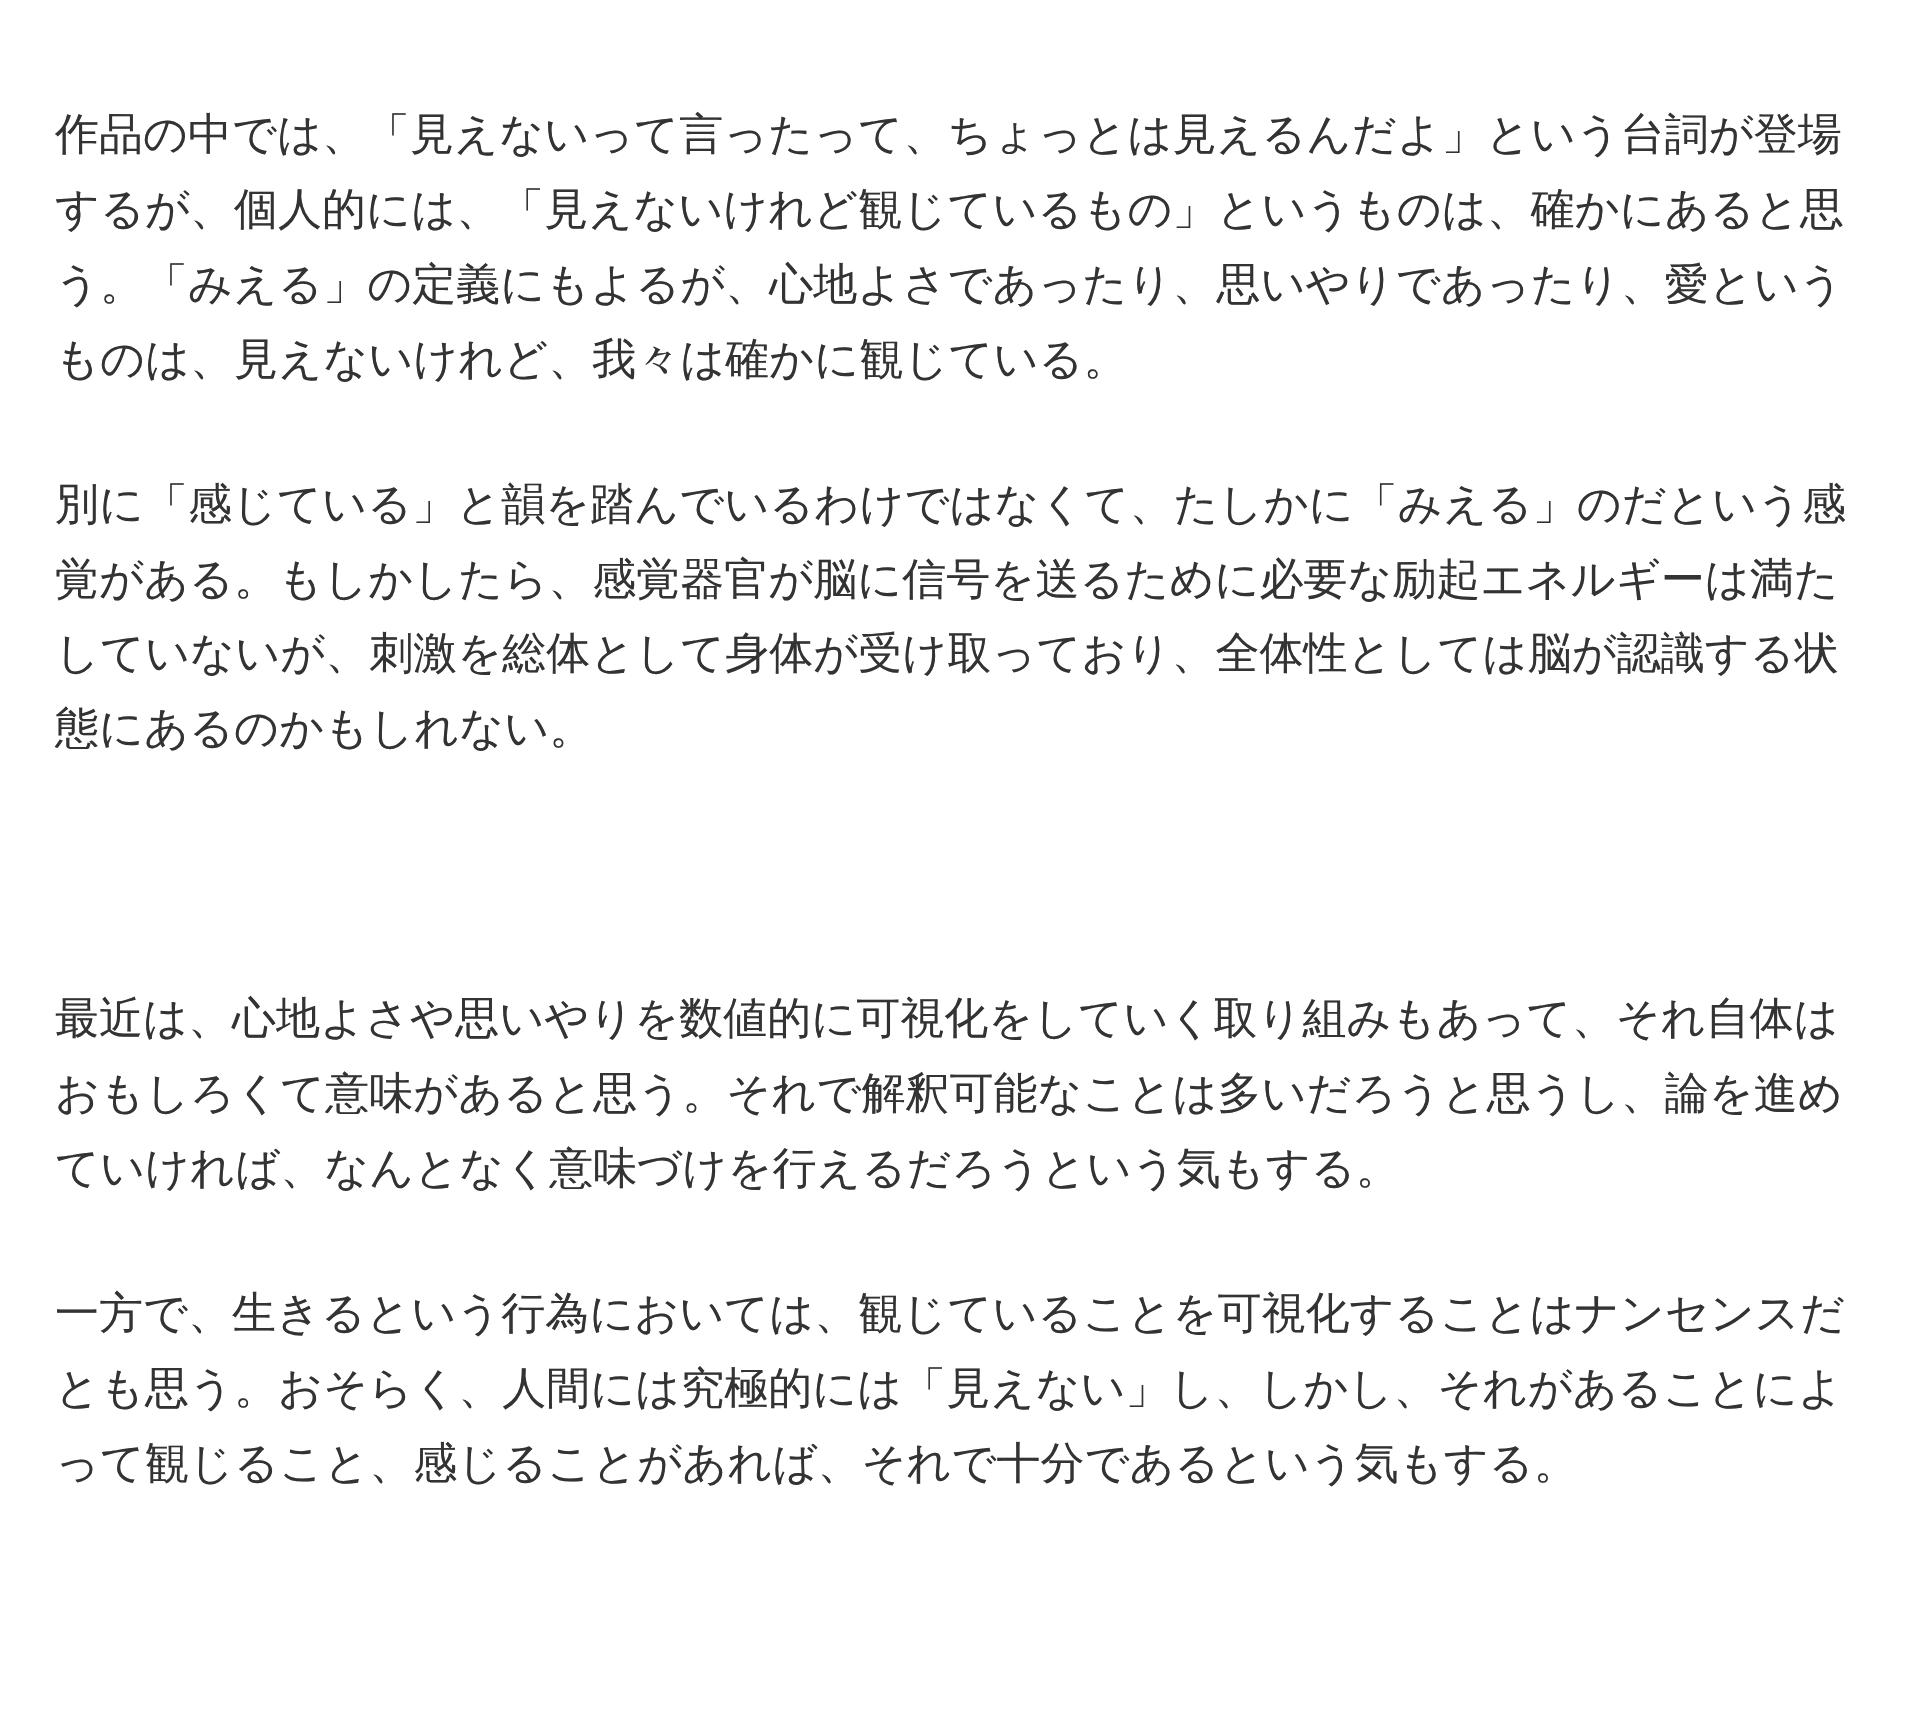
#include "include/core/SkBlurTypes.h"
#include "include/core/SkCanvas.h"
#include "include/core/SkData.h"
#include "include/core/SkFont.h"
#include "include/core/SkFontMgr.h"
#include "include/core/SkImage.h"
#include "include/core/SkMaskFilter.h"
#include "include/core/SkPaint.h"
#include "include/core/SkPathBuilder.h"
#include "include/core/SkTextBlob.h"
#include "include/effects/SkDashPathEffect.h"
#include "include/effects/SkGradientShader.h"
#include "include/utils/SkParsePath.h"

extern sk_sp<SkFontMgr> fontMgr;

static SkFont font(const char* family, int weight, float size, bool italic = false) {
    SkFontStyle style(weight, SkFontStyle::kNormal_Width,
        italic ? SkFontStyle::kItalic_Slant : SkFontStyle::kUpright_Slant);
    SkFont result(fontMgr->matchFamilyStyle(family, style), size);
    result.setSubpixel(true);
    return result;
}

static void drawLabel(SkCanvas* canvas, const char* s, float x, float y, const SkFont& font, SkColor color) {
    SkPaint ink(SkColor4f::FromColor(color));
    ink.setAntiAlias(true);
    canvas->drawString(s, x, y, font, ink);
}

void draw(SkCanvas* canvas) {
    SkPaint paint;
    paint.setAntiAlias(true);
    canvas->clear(0xFFFFFFFF);
    SkFont font1 = font("WenQuanYi Zen Hei", 500, 44);
    drawLabel(canvas, "作品の中では、「見えないって言ったって、ちょっとは見えるんだよ」という台詞が登場", 55, 149, font1, 0xFF333333);
    drawLabel(canvas, "するが、個人的には、「見えないけれど観じているもの」というものは、確かにあると思", 55, 224, font1, 0xFF333333);
    drawLabel(canvas, "う。「みえる」の定義にもよるが、心地よさであったり、思いやりであったり、愛という", 55, 299, font1, 0xFF333333);
    drawLabel(canvas, "ものは、見えないけれど、我々は確かに観じている。", 55, 374, font1, 0xFF333333);
    drawLabel(canvas, "別に「感じている」と韻を踏んでいるわけではなくて、たしかに「みえる」のだという感", 55, 519, font1, 0xFF333333);
    drawLabel(canvas, "覚がある。もしかしたら、感覚器官が脳に信号を送るために必要な励起エネルギーは満た", 55, 594, font1, 0xFF333333);
    drawLabel(canvas, "していないが、刺激を総体として身体が受け取っており、全体性としては脳が認識する状", 55, 668, font1, 0xFF333333);
    drawLabel(canvas, "態にあるのかもしれない。", 55, 743, font1, 0xFF333333);
    drawLabel(canvas, "最近は、心地よさや思いやりを数値的に可視化をしていく取り組みもあって、それ自体は", 55, 1033, font1, 0xFF333333);
    drawLabel(canvas, "おもしろくて意味があると思う。それで解釈可能なことは多いだろうと思うし、論を進め", 55, 1108, font1, 0xFF333333);
    drawLabel(canvas, "ていければ、なんとなく意味づけを行えるだろうという気もする。", 55, 1183, font1, 0xFF333333);
    drawLabel(canvas, "一方で、生きるという行為においては、観じていることを可視化することはナンセンスだ", 55, 1328, font1, 0xFF333333);
    drawLabel(canvas, "とも思う。おそらく、人間には究極的には「見えない」し、しかし、それがあることによ", 55, 1403, font1, 0xFF333333);
    drawLabel(canvas, "って観じること、感じることがあれば、それで十分であるという気もする。", 55, 1478, font1, 0xFF333333);
}
